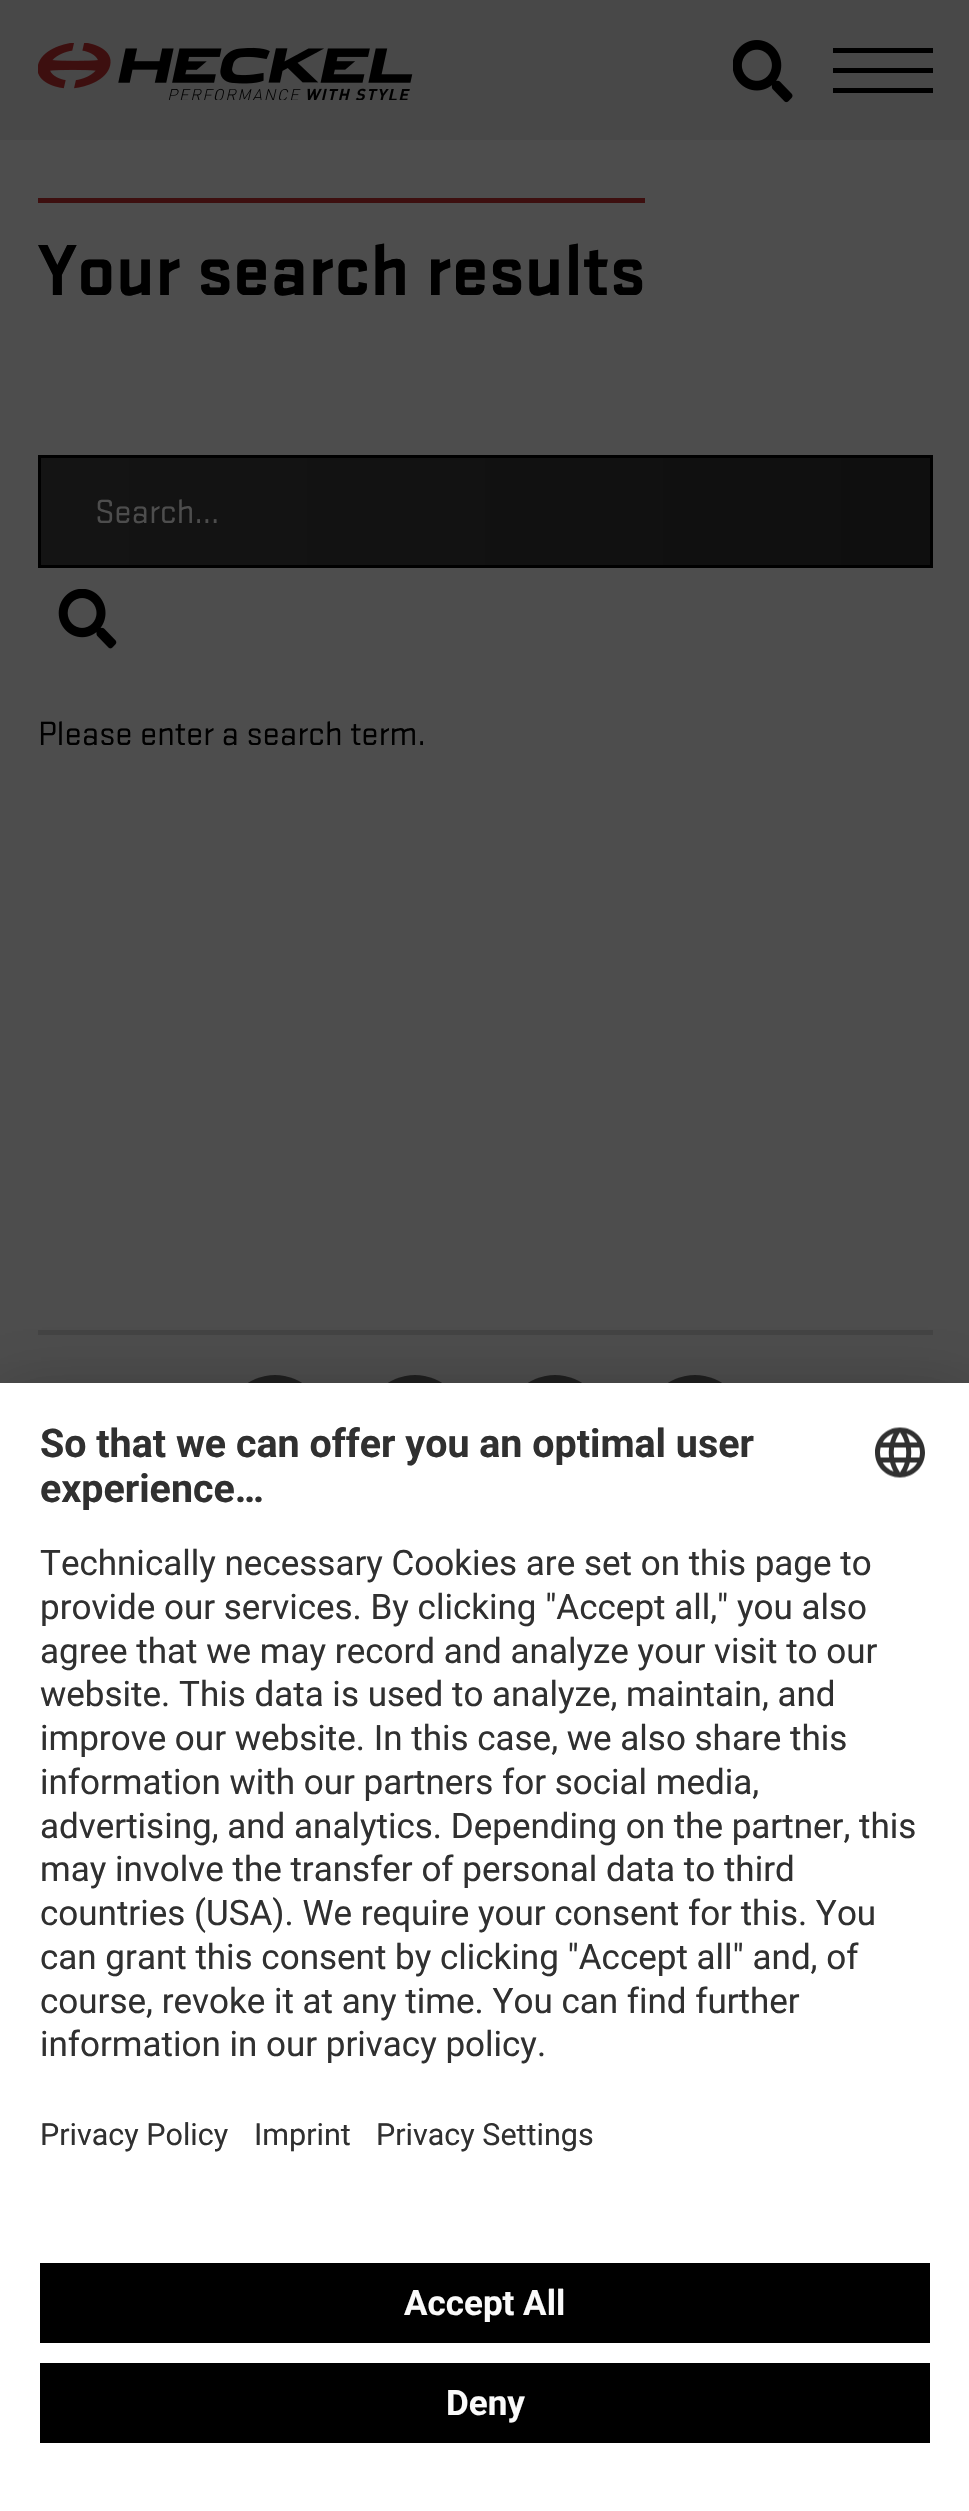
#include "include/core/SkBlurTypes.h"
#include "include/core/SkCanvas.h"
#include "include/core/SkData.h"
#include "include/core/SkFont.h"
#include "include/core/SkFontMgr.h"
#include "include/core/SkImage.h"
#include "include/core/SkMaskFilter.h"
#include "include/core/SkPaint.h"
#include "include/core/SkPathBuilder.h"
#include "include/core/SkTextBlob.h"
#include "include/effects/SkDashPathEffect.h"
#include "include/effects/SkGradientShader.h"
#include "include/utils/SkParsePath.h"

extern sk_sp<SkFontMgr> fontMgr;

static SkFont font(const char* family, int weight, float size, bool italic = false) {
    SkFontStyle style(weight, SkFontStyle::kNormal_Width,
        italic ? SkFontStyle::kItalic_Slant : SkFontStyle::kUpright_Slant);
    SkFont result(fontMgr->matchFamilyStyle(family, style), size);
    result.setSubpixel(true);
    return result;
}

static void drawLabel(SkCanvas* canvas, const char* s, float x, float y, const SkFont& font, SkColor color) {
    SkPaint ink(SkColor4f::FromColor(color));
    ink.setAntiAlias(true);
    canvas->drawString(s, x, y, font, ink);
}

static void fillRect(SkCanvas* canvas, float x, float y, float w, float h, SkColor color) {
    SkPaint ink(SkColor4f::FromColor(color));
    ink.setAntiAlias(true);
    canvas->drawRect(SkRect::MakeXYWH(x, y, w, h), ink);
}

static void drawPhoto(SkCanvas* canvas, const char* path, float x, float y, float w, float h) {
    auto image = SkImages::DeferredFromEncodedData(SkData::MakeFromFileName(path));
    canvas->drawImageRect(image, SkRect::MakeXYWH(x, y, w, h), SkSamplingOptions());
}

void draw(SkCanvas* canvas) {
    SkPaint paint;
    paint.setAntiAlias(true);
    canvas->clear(0xFF4D4D4D);
    fillRect(canvas, 0, 0, 969, 140, 0xFF484848);
    drawPhoto(canvas, "assets/img1.png", 38, 43, 375, 57);
    drawPhoto(canvas, "assets/img2.png", 733, 40, 60, 63);
    fillRect(canvas, 833, 68, 100, 5, 0xFF000000);
    fillRect(canvas, 833, 48, 100, 5, 0xFF000000);
    fillRect(canvas, 833, 88, 100, 5, 0xFF000000);
    fillRect(canvas, 38, 198, 607, 5, 0xFF3D0F0F);
    SkFont font1 = font("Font", 700, 75);
    drawLabel(canvas, "Your search results", 38, 295, font1, 0xFF000000);
    {
        const SkColor colors[] = {0xFF141414, 0xFF0F0F0F};
        const float stops[] = {0, 1};
        const SkPoint ends[] = {{40, 511}, {930, 511}};
        paint.setShader(SkGradientShader::MakeLinear(ends, colors, stops, 2, SkTileMode::kClamp));
        paint.setAlpha(255);
    }
    canvas->drawRect(SkRect::MakeXYWH(41, 458, 889, 107), paint);
    paint.setStroke(true);
    paint.setStrokeWidth(3);
    paint.setShader(nullptr);
    paint.setColor(0xFF000000);
    canvas->drawRect(SkRect::MakeXYWH(39.5f, 456.5f, 892, 110), paint);
    SkFont font2 = font("Font", 400, 35);
    drawLabel(canvas, "Search...", 95, 523, font2, 0xFF4D4D4D);
    drawPhoto(canvas, "assets/img3.png", 58, 589, 59, 60);
    drawLabel(canvas, "Please enter a search term.", 38, 745, font2, 0xFF000000);
    fillRect(canvas, 38, 1330, 895, 5, 0xFF444444);
    paint.setStroke(false);
    paint.setColor(0xFF1F1F1F);
    canvas->drawCircle(275, 1425, 50, paint);
    canvas->drawCircle(415, 1425, 50, paint);
    canvas->drawCircle(555, 1425, 50, paint);
    canvas->drawCircle(695, 1425, 50, paint);
    paint.setColor(0x4D000000);
    paint.setMaskFilter(SkMaskFilter::MakeBlur(kNormal_SkBlurStyle, 35));
    canvas->drawRect(SkRect::MakeXYWH(0, 1433, 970, 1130), paint);
    paint.setMaskFilter(nullptr);
    paint.setColor(0x38000000);
    paint.setMaskFilter(SkMaskFilter::MakeBlur(kNormal_SkBlurStyle, 32.5f));
    canvas->drawRect(SkRect::MakeXYWH(0, 1395, 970, 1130), paint);
    paint.setMaskFilter(nullptr);
    fillRect(canvas, 0, 1383, 969, 1128, 0xFFFFFFFF);
    SkFont font3 = font("Roboto", 700, 39.4f);
    drawLabel(canvas, "So that we can offer you an optimal user", 40, 1457, font3, 0xFF303030);
    drawLabel(canvas, "experience…", 40, 1502, font3, 0xFF303030);
    drawPhoto(canvas, "assets/img4.png", 875, 1427, 50, 51);
    SkFont font4 = font("Roboto", 400, 35);
    drawLabel(canvas, "Technically necessary Cookies are set on this page to", 40, 1575, font4, 0xFF303030);
    drawLabel(canvas, "provide our services. By clicking \"Accept all,\" you also", 40, 1619, font4, 0xFF303030);
    drawLabel(canvas, "agree that we may record and analyze your visit to our", 40, 1663, font4, 0xFF303030);
    drawLabel(canvas, "website. This data is used to analyze, maintain, and", 40, 1706, font4, 0xFF303030);
    drawLabel(canvas, "improve our website. In this case, we also share this", 40, 1750, font4, 0xFF303030);
    drawLabel(canvas, "information with our partners for social media,", 40, 1794, font4, 0xFF303030);
    drawLabel(canvas, "advertising, and analytics. Depending on the partner, this", 40, 1838, font4, 0xFF303030);
    drawLabel(canvas, "may involve the transfer of personal data to third", 40, 1881, font4, 0xFF303030);
    drawLabel(canvas, "countries (USA). We require your consent for this. You", 40, 1925, font4, 0xFF303030);
    drawLabel(canvas, "can grant this consent by clicking \"Accept all\" and, of", 40, 1969, font4, 0xFF303030);
    drawLabel(canvas, "course, revoke it at any time. You can find further", 40, 2013, font4, 0xFF303030);
    drawLabel(canvas, "information in our privacy policy.", 40, 2056, font4, 0xFF303030);
    SkFont font5 = font("Roboto", 400, 30.5f);
    drawLabel(canvas, "Privacy Policy", 40, 2145, font5, 0xFF303030);
    drawLabel(canvas, "Imprint", 254, 2145, font5, 0xFF303030);
    drawLabel(canvas, "Privacy Settings", 376, 2145, font5, 0xFF303030);
    fillRect(canvas, 40, 2263, 890, 80, 0xFF000000);
    SkFont font6 = font("Roboto", 700, 35);
    drawLabel(canvas, "Accept All", 404, 2315, font6, 0xFFFAFAFA);
    fillRect(canvas, 40, 2363, 890, 80, 0xFF000000);
    drawLabel(canvas, "Deny", 446, 2415, font6, 0xFFFAFAFA);
}
